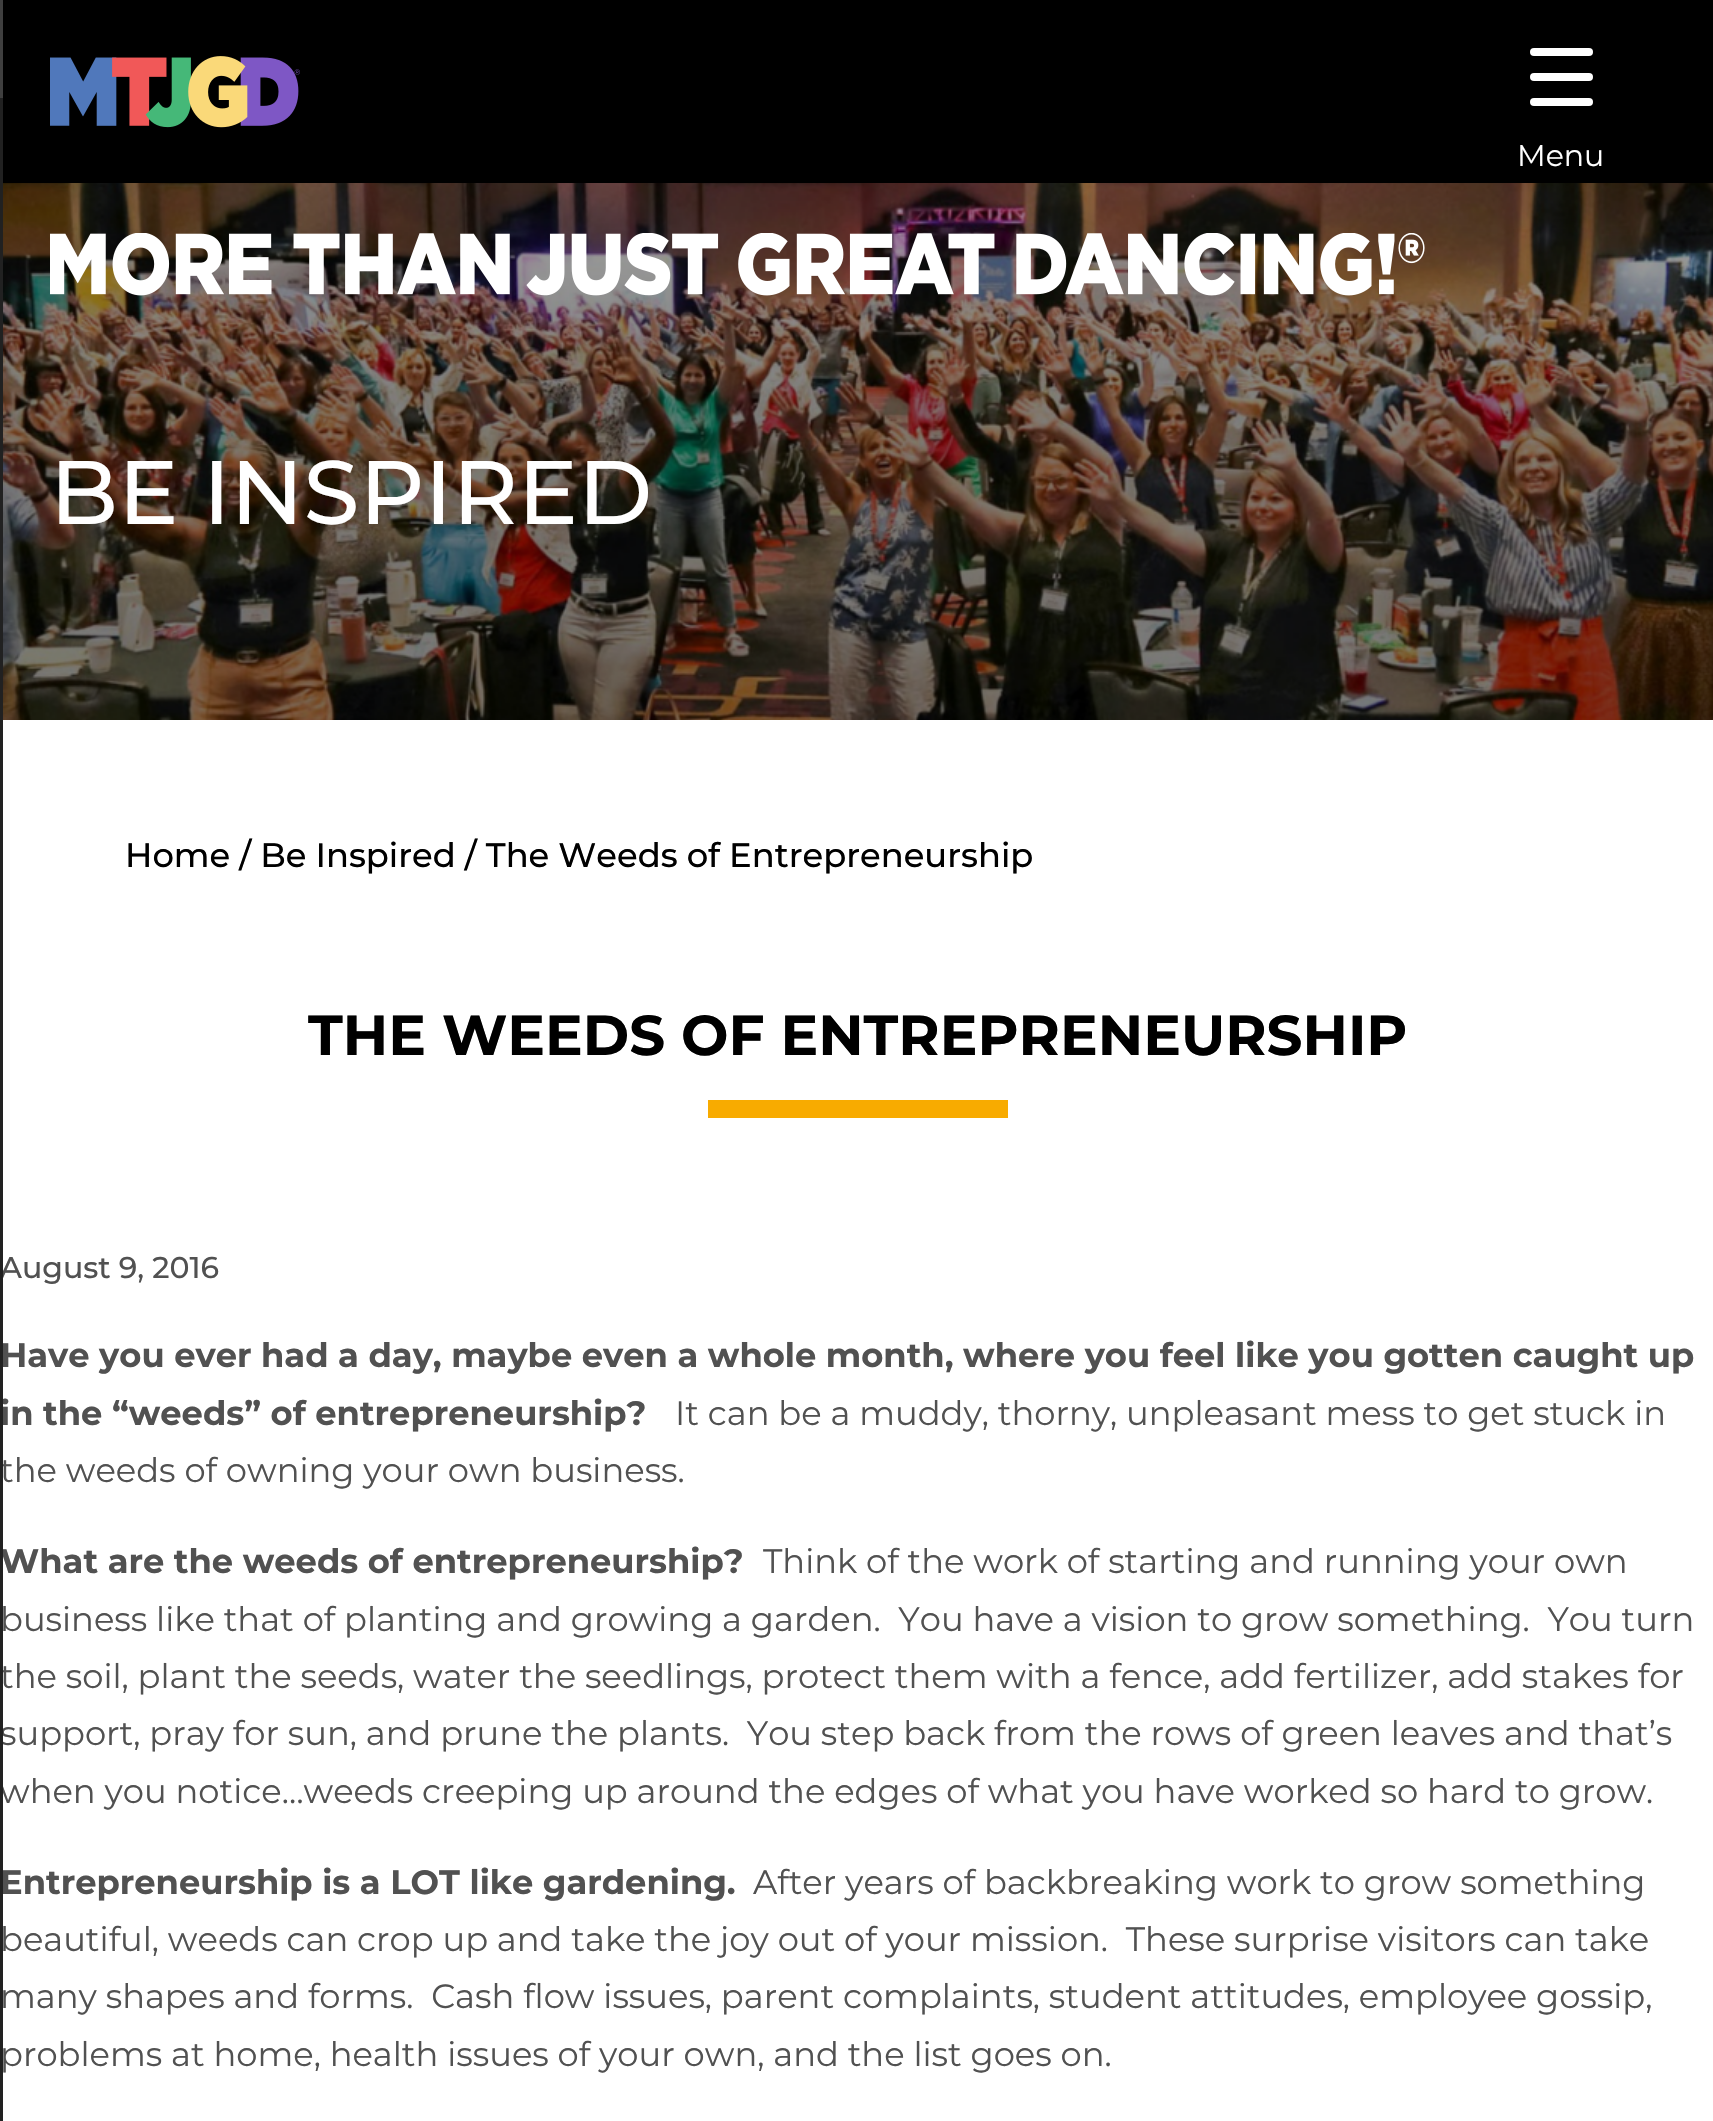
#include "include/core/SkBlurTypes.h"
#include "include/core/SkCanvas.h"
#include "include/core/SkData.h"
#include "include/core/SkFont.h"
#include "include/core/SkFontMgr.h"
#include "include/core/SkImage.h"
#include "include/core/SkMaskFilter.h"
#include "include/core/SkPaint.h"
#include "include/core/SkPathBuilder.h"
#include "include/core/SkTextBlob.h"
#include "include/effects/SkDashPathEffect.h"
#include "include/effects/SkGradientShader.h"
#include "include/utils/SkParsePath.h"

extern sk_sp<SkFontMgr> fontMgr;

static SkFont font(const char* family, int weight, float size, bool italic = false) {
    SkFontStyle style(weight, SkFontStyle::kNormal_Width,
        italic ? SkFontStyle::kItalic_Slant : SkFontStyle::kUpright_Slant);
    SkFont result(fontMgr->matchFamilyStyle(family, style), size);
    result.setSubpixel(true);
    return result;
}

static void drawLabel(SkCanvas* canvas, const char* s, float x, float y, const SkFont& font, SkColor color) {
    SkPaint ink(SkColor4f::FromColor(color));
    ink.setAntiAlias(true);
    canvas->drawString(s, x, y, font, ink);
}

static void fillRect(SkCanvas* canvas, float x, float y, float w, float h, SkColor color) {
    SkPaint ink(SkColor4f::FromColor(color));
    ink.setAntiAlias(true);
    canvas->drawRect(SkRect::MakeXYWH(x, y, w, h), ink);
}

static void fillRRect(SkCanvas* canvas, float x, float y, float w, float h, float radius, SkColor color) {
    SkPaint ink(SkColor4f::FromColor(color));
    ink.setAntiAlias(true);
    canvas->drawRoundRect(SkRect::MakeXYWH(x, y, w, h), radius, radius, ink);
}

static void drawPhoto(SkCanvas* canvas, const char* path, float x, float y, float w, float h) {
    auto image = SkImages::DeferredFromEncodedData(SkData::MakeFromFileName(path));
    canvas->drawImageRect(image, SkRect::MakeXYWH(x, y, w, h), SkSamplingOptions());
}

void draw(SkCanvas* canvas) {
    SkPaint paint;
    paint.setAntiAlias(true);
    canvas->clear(0xFFFFFFFF);
    SkFont font1 = font("Montserrat", 500, 30);
    drawLabel(canvas, "August 9, 2016", 0, 1278, font1, 0xFF515151);
    SkFont font2 = font("Montserrat", 700, 33.75f);
    drawLabel(canvas, "Have you ever had a day, maybe even a whole month, where you feel like you gotten caught up", 0, 1367, font2, 0xFF515151);
    drawLabel(canvas, "in the “weeds” of entrepreneurship?", 0, 1425, font2, 0xFF515151);
    SkFont font3 = font("Montserrat", 400, 33.75f);
    drawLabel(canvas, "the weeds of owning your own business.", 0, 1482, font3, 0xFF515151);
    drawLabel(canvas, "What are the weeds of entrepreneurship?", 0, 1573, font2, 0xFF515151);
    drawLabel(canvas, "the soil, plant the seeds, water the seedlings, protect them with a fence, add fertilizer, add stakes for", 0, 1688, font3, 0xFF515151);
    drawLabel(canvas, "support, pray for sun, and prune the plants.  You step back from the rows of green leaves and that’s", 0, 1745, font3, 0xFF515151);
    drawLabel(canvas, "when you notice…weeds creeping up around the edges of what you have worked so hard to grow.", 0, 1803, font3, 0xFF515151);
    drawLabel(canvas, "Entrepreneurship is a LOT like gardening.", 0, 1894, font2, 0xFF515151);
    fillRect(canvas, 0, 101, 3, 2020, 0xFF212121);
    fillRect(canvas, 0, 0, 3, 100, 0xFF3F3F3F);
    fillRect(canvas, 0, 98, 3, 3, 0xFF212121);
    fillRect(canvas, 3, 0, 1710, 183, 0xFF000000);
    fillRRect(canvas, 1530, 73, 63, 8, 4, 0xFFFFFFFF);
    fillRRect(canvas, 1530, 48, 63, 8, 4, 0xFFFFFFFF);
    fillRRect(canvas, 1530, 98, 63, 8, 4, 0xFFFFFFFF);
    SkFont font4 = font("Montserrat", 400, 30);
    drawLabel(canvas, "Menu", 1517, 166, font4, 0xFFFFFFFF);
    drawPhoto(canvas, "assets/img1.png", 3, 183, 1710, 537);
    drawPhoto(canvas, "assets/img2.png", 50, 56, 250, 72);
    drawPhoto(canvas, "assets/img3.png", 50, 233, 1375, 63);
    SkFont font5 = font("Montserrat", 500, 90);
    drawLabel(canvas, "BE INSPIRED", 50, 524, font5, 0xFFFFFFFF);
    SkFont font6 = font("Montserrat", 500, 33.75f);
    drawLabel(canvas, "Home / Be Inspired / The Weeds of Entrepreneurship", 125, 867, font6, 0xFF000000);
    SkFont font7 = font("Montserrat", 700, 56.25f);
    drawLabel(canvas, "THE WEEDS OF ENTREPRENEURSHIP", 308, 1055, font7, 0xFF000000);
    fillRect(canvas, 708, 1100, 300, 18, 0xFFF8AB00);
    drawLabel(canvas, "It can be a muddy, thorny, unpleasant mess to get stuck in", 675, 1425, font3, 0xFF515151);
    drawLabel(canvas, "Think of the work of starting and running your own", 763, 1573, font3, 0xFF515151);
    drawLabel(canvas, "business like that of planting and growing a garden.  You have a vision to grow something.  You turn", 0, 1631, font3, 0xFF515151);
    drawLabel(canvas, "After years of backbreaking work to grow something", 753, 1894, font3, 0xFF515151);
    drawLabel(canvas, "beautiful, weeds can crop up and take the joy out of your mission.  These surprise visitors can take", 0, 1951, font3, 0xFF515151);
    drawLabel(canvas, "many shapes and forms.  Cash flow issues, parent complaints, student attitudes, employee gossip,", 0, 2008, font3, 0xFF515151);
    drawLabel(canvas, "problems at home, health issues of your own, and the list goes on.", 0, 2066, font3, 0xFF515151);
}
